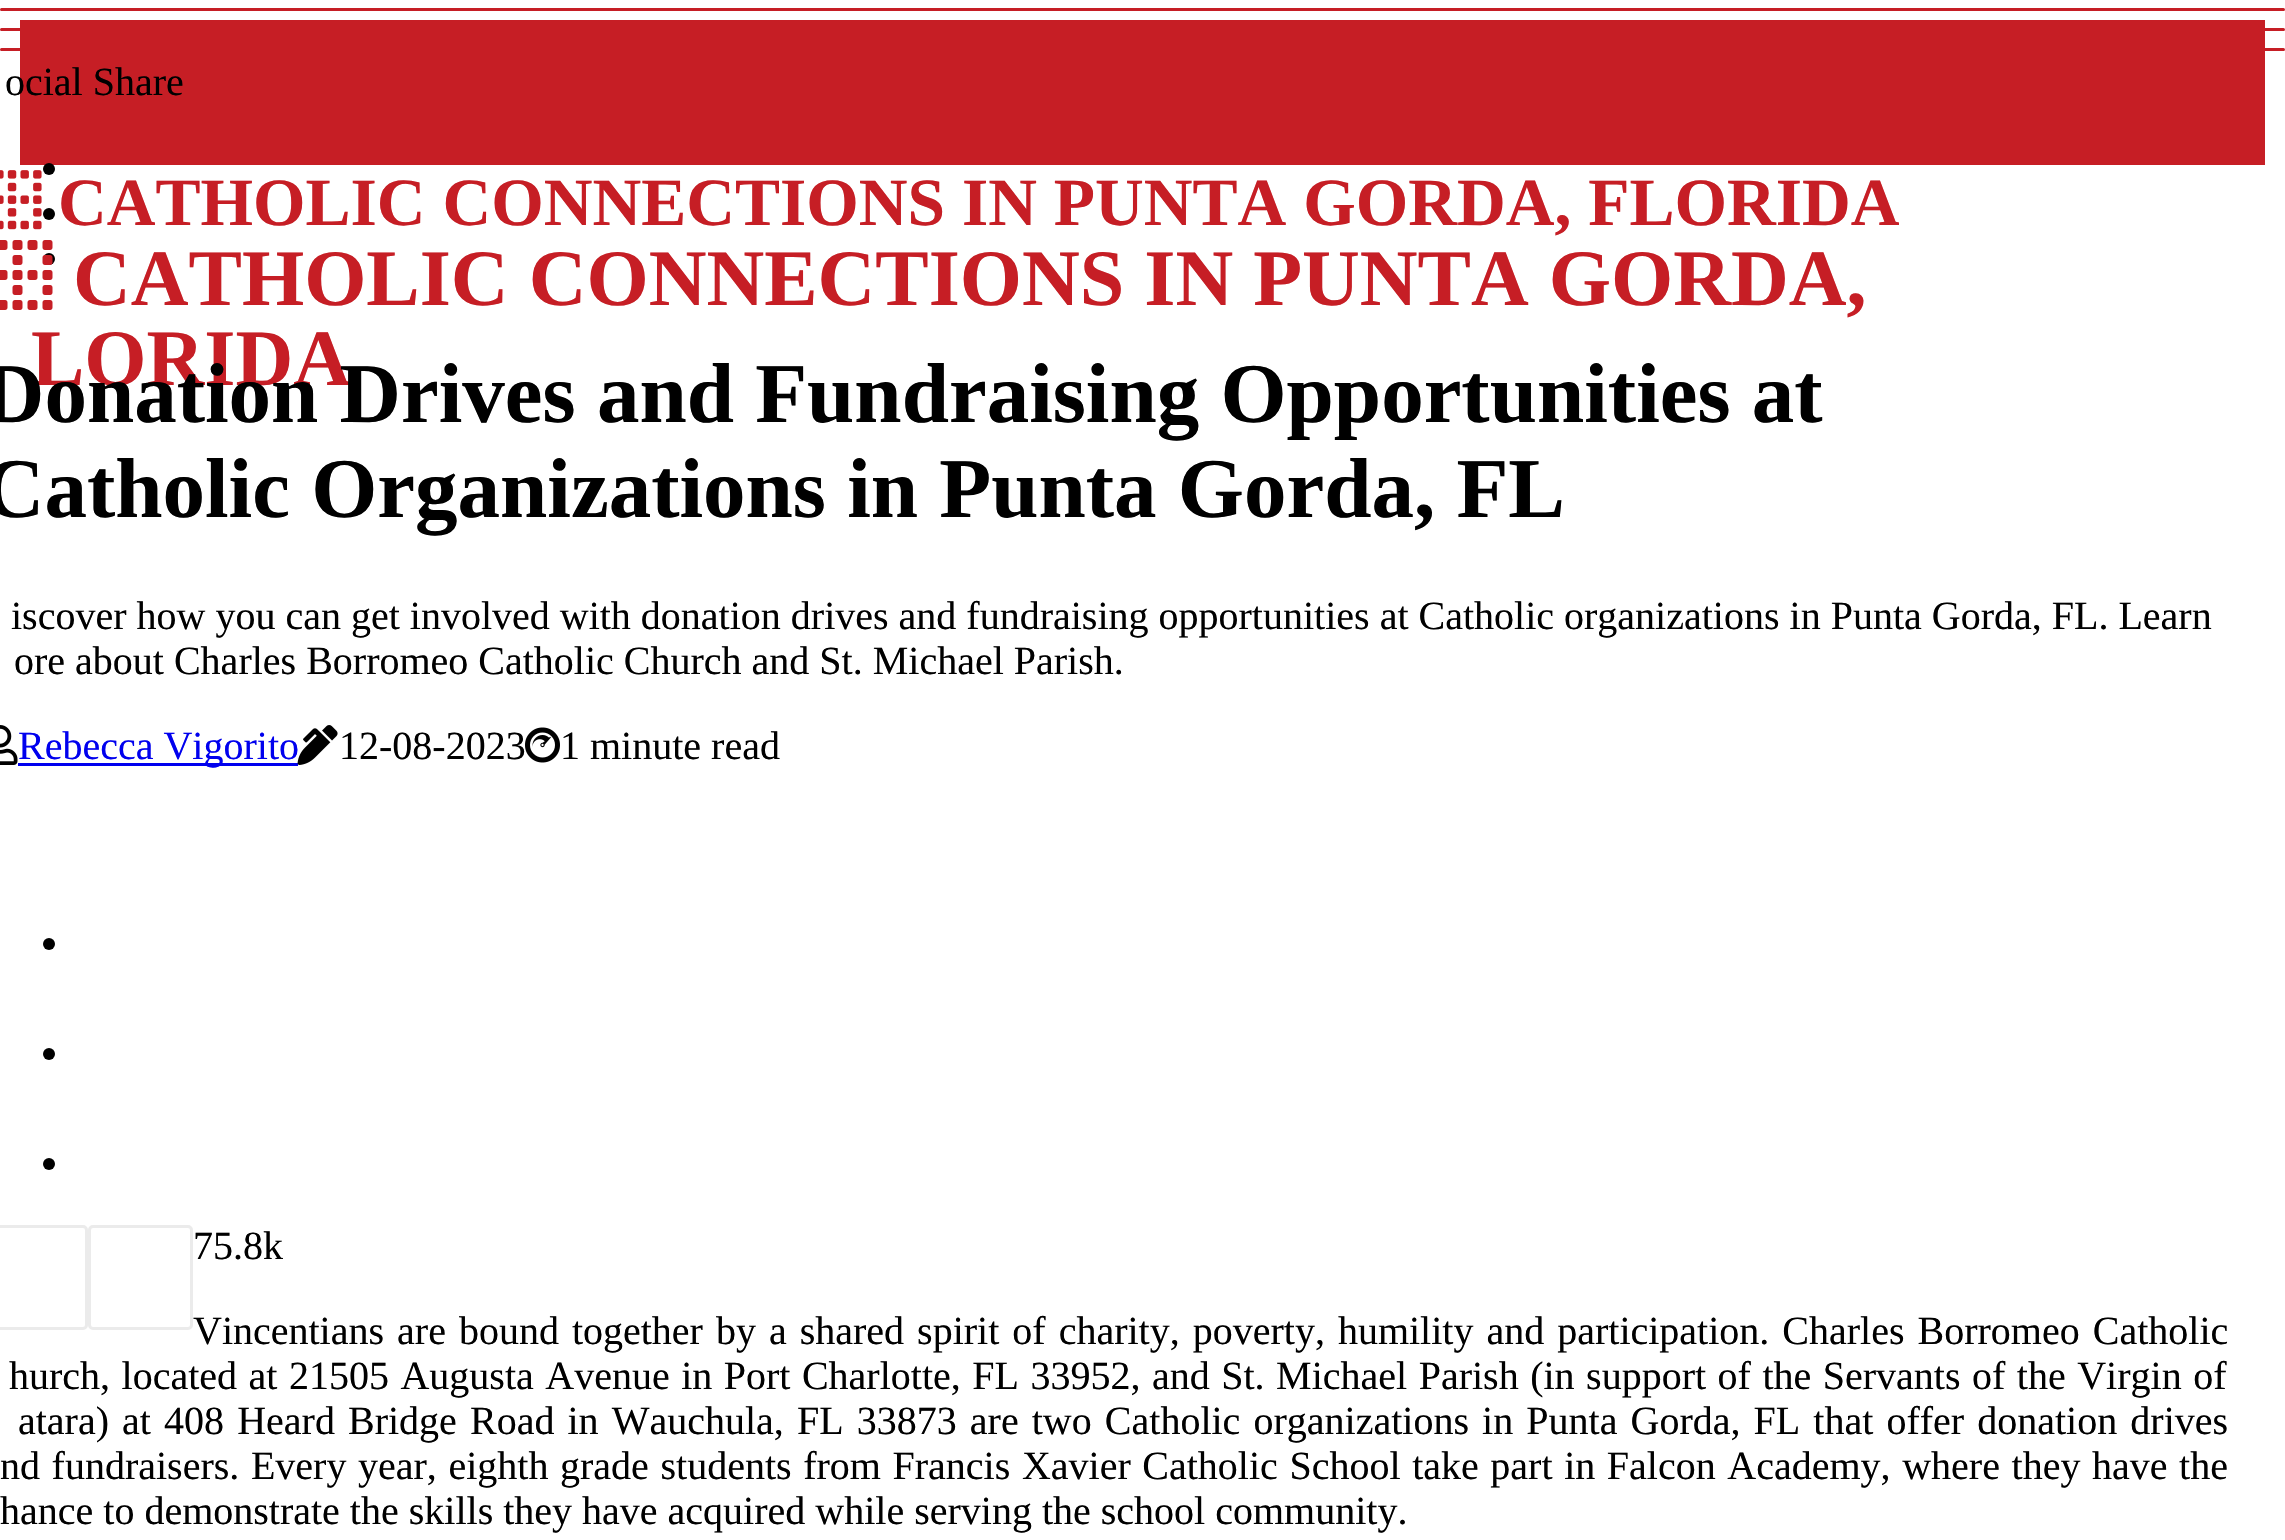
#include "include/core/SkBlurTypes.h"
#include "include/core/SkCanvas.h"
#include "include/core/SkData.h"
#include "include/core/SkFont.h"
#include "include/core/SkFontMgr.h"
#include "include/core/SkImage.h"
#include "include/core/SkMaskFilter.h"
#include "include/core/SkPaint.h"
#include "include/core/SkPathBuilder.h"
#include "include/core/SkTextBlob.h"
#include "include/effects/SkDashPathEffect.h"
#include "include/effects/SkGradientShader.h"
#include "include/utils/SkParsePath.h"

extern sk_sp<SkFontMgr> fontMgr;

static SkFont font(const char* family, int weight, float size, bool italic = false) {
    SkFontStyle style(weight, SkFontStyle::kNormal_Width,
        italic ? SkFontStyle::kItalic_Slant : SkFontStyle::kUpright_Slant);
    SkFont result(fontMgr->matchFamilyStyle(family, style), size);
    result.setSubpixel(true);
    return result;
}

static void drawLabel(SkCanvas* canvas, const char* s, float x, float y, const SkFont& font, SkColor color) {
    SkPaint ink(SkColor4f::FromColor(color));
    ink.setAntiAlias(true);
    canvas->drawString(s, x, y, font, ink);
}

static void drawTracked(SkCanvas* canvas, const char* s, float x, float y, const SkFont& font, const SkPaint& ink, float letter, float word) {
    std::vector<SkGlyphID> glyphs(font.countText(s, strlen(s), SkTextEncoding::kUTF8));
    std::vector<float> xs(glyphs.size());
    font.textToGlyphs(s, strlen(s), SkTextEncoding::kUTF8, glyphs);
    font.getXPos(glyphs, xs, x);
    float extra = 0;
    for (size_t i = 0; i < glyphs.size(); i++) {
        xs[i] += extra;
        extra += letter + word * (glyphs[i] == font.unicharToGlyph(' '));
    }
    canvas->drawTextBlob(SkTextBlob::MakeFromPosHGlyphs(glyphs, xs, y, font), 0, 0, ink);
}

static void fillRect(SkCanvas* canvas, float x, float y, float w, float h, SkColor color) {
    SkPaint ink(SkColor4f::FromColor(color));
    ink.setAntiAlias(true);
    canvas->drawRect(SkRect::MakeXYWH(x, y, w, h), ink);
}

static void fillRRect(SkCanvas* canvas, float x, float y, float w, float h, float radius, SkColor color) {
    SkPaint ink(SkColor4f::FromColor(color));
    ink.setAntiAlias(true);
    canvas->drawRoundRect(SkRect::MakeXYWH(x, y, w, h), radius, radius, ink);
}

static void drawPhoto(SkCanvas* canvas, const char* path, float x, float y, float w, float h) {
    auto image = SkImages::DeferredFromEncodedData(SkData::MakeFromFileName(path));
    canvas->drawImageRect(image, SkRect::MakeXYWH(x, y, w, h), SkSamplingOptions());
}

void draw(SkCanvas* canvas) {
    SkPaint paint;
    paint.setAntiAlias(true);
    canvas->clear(0xFFFFFFFF);
    fillRect(canvas, 20, 20, 2245, 145, 0xFFC61E25);
    SkFont font1 = font("Liberation Serif", 400, 40);
    drawLabel(canvas, "ocial Share", 5, 95, font1, 0xFF000000);
    paint.setColor(0xFF000000);
    canvas->drawCircle(49, 169, 6, paint);
    canvas->drawCircle(49, 214, 6, paint);
    canvas->drawCircle(49, 259, 6, paint);
    fillRRect(canvas, 0, 8, 2285, 3, 1.5f, 0xFFC61E25);
    fillRRect(canvas, 0, 28, 2285, 3, 1.5f, 0xFFC61E25);
    fillRRect(canvas, 0, 48, 2285, 3, 1.5f, 0xFFC61E25);
    drawPhoto(canvas, "assets/img1.png", 0, 170, 42, 60);
    SkFont font2 = font("Liberation Serif", 700, 67.5f);
    drawLabel(canvas, "CATHOLIC CONNECTIONS IN PUNTA GORDA, FLORIDA", 58, 225, font2, 0xFFC61E25);
    drawPhoto(canvas, "assets/img2.png", 0, 240, 53, 70);
    SkFont font3 = font("Liberation Serif", 700, 80);
    drawLabel(canvas, "CATHOLIC CONNECTIONS IN PUNTA GORDA,", 73, 305, font3, 0xFFC61E25);
    drawLabel(canvas, "LORIDA", 31, 385, font3, 0xFFC61E25);
    SkFont font4 = font("Liberation Serif", 700, 85);
    drawLabel(canvas, "Donation Drives and Fundraising Opportunities at", -17, 422, font4, 0xFF000000);
    drawLabel(canvas, "Catholic Organizations in Punta Gorda, FL", -17, 517, font4, 0xFF000000);
    drawLabel(canvas, "iscover how you can get involved with donation drives and fundraising opportunities at Catholic organizations in Punta Gorda, FL. Learn", 11, 629, font1, 0xFF000000);
    drawLabel(canvas, "ore about Charles Borromeo Catholic Church and St. Michael Parish.", 14, 674, font1, 0xFF000000);
    drawPhoto(canvas, "assets/img3.png", 0, 725, 18, 40);
    fillRect(canvas, 18, 763, 280, 3, 0xFF0000EE);
    drawLabel(canvas, "Rebecca Vigorito", 18, 759, font1, 0xFF0000EE);
    drawPhoto(canvas, "assets/img4.png", 297, 725, 41, 40);
    drawLabel(canvas, "12-08-2023", 339, 759, font1, 0xFF000000);
    drawPhoto(canvas, "assets/img5.png", 525, 727, 35, 36);
    drawLabel(canvas, "1 minute read", 560, 759, font1, 0xFF000000);
    canvas->drawCircle(49, 944, 6, paint);
    canvas->drawCircle(49, 1054, 6, paint);
    canvas->drawCircle(49, 1164, 6, paint);
    paint.setStroke(true);
    paint.setStrokeWidth(3);
    paint.setColor(0xFFEBEBEB);
    canvas->drawRoundRect(SkRect::MakeXYWH(89.5f, 1226.5f, 102, 102), 3.5f, 3.5f, paint);
    canvas->drawRoundRect(SkRect::MakeXYWH(-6.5f, 1226.5f, 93, 102), 3.5f, 3.5f, paint);
    drawLabel(canvas, "75.8k", 193, 1259, font1, 0xFF000000);
    paint.setStroke(false);
    paint.setColor(0xFF000000);
    drawTracked(canvas, "Vincentians are bound together by a shared spirit of charity, poverty, humility and participation. Charles Borromeo Catholic", 193, 1344, font1, paint, 0, 3);
    drawTracked(canvas, "hurch, located at 21505 Augusta Avenue in Port Charlotte, FL 33952, and St. Michael Parish (in support of the Servants of the Virgin of", 9, 1389, font1, paint, 0, 1.5f);
    drawTracked(canvas, "atara) at 408 Heard Bridge Road in Wauchula, FL 33873 are two Catholic organizations in Punta Gorda, FL that offer donation drives", 18, 1434, font1, paint, 0, 3.1f);
    drawTracked(canvas, "nd fundraisers. Every year, eighth grade students from Francis Xavier Catholic School take part in Falcon Academy, where they have the", 0, 1479, font1, paint, 0, 1.6f);
    drawLabel(canvas, "hance to demonstrate the skills they have acquired while serving the school community.", 0, 1524, font1, 0xFF000000);
}
